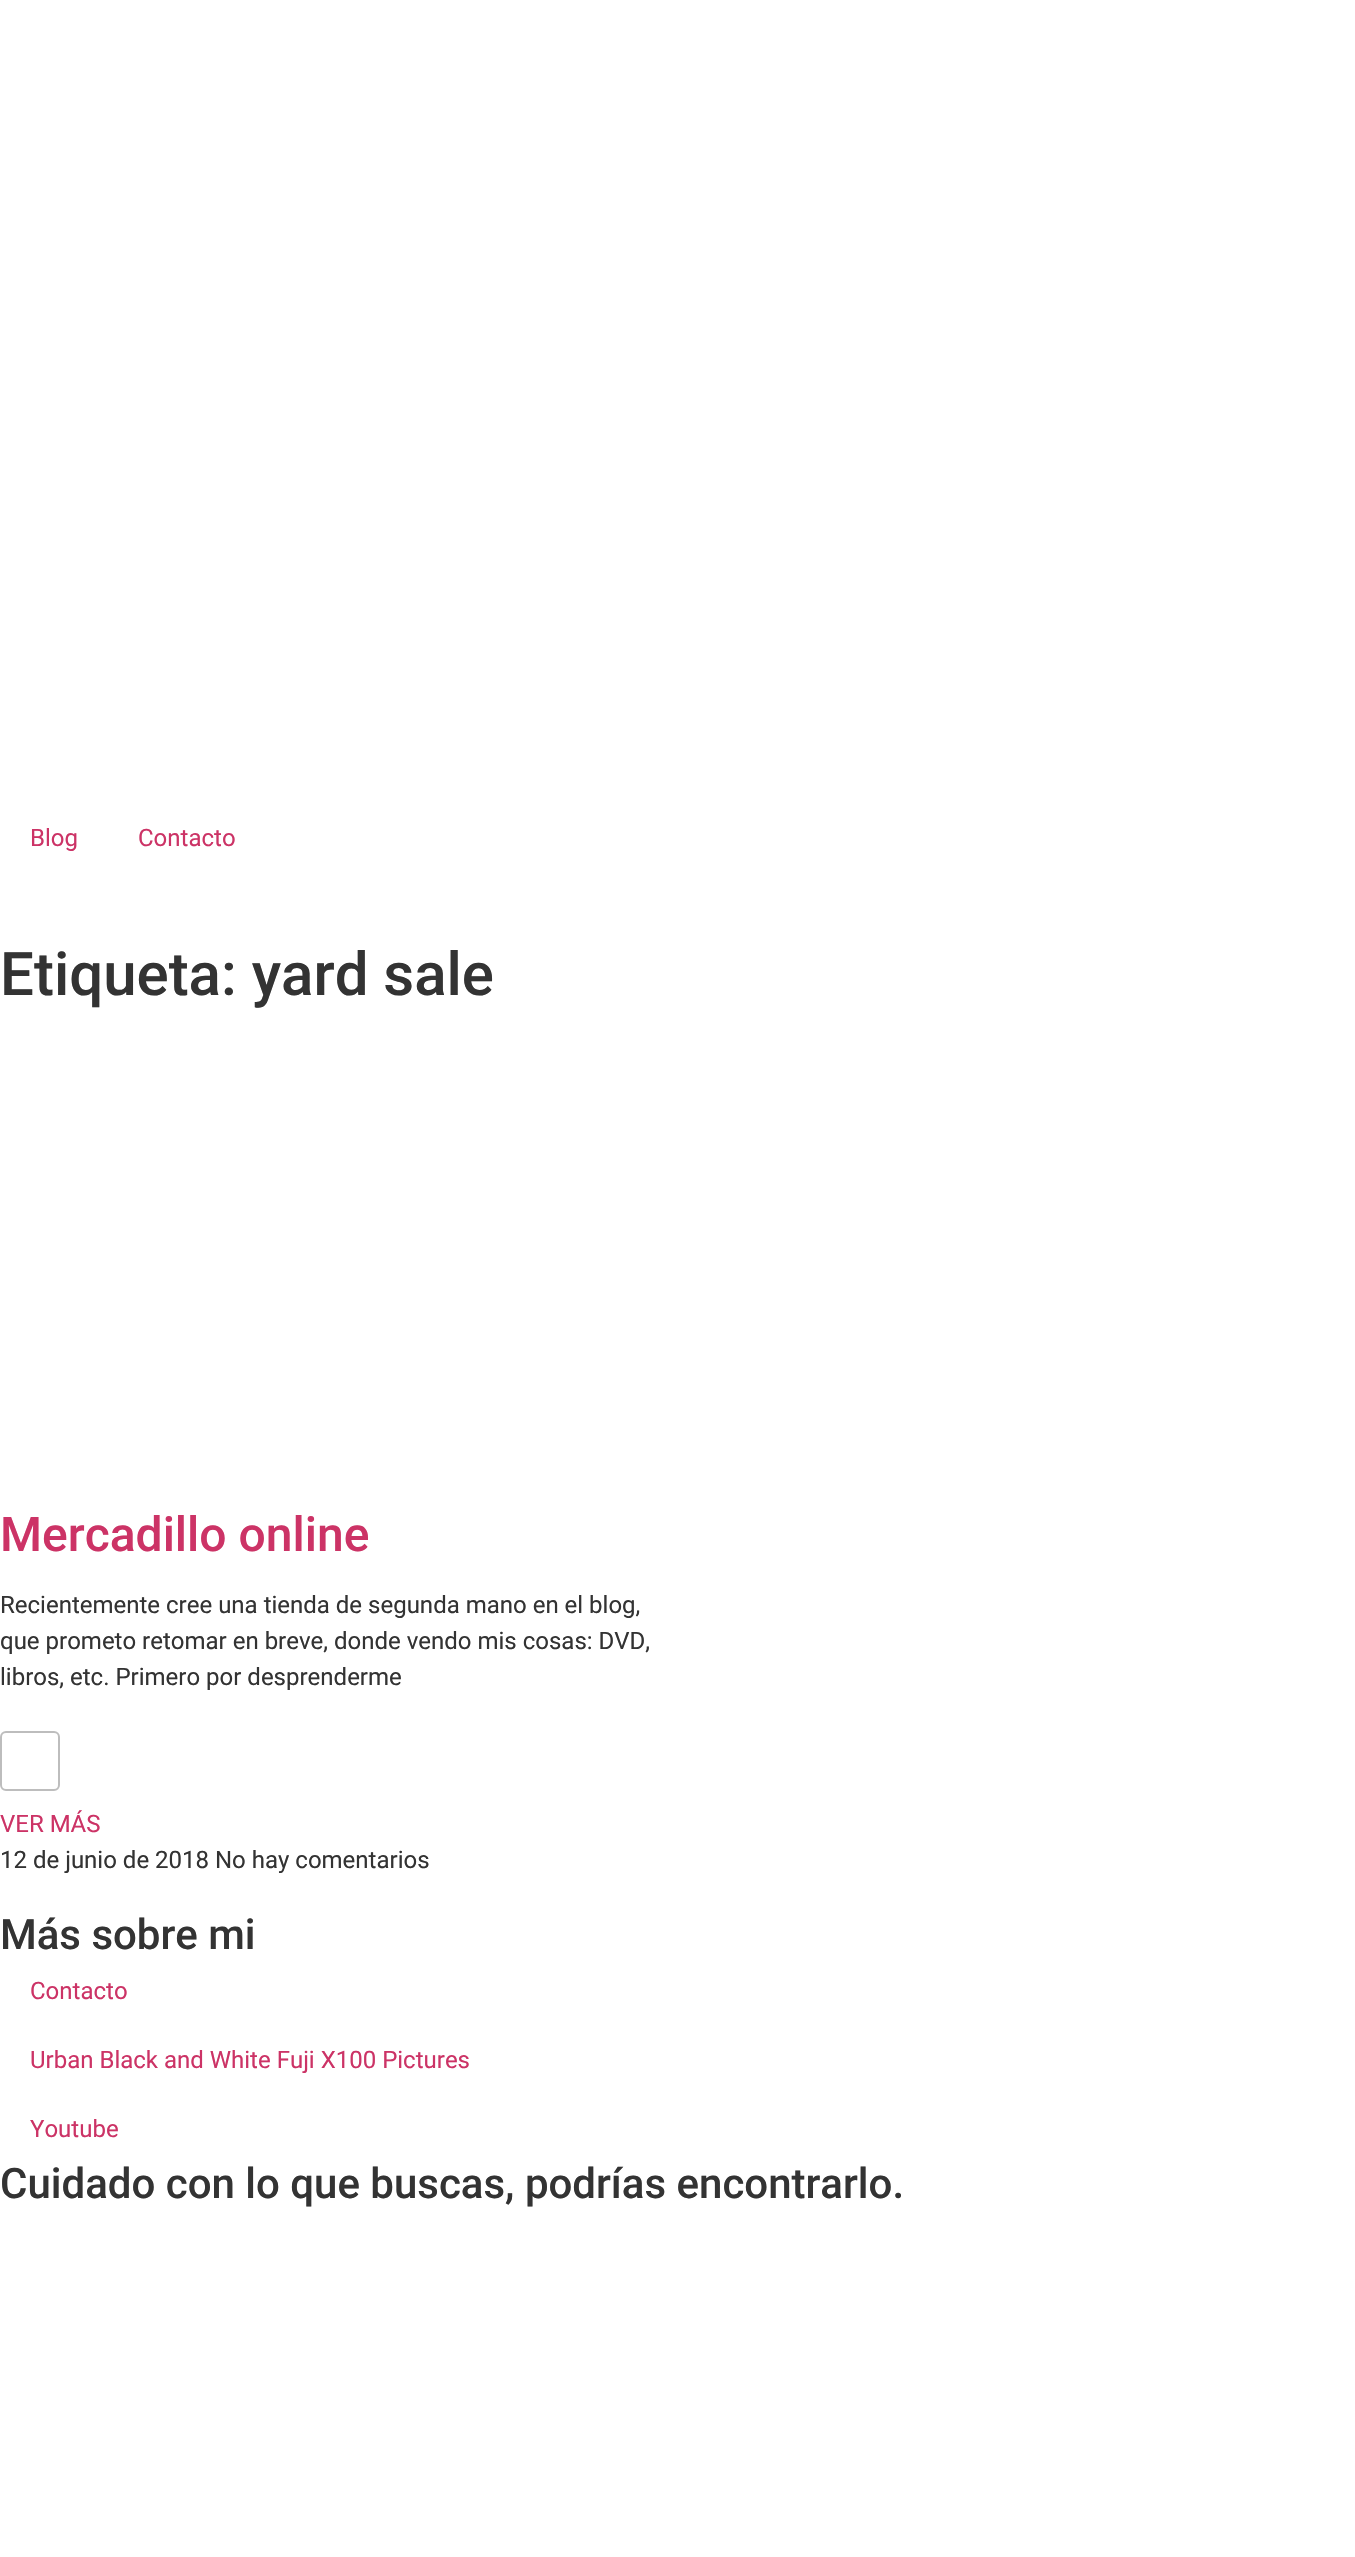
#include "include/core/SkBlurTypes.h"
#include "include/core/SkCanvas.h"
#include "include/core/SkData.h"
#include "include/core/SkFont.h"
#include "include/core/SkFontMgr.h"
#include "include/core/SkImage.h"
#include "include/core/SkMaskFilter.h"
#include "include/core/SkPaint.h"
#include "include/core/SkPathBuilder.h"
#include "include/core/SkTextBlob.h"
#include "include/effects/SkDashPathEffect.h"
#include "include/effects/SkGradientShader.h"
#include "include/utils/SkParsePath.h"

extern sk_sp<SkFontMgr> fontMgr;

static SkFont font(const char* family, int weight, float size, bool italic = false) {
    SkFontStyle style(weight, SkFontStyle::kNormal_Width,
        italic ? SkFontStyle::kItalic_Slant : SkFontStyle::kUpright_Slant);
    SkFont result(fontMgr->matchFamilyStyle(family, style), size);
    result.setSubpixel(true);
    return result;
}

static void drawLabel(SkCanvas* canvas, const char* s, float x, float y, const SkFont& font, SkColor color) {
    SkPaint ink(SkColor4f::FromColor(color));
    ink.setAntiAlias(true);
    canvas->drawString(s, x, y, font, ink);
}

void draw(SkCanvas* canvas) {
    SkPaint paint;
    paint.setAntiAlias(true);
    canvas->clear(0xFFFFFFFF);
    SkFont font1 = font("Roboto", 400, 24);
    drawLabel(canvas, "Blog", 30, 846, font1, 0xFFCC3366);
    drawLabel(canvas, "Contacto", 138, 846, font1, 0xFFCC3366);
    SkFont font2 = font("Roboto", 500, 60);
    drawLabel(canvas, "Etiqueta: yard sale", 0, 995, font2, 0xFF333333);
    SkFont font3 = font("Roboto", 500, 48);
    drawLabel(canvas, "Mercadillo online", 0, 1551, font3, 0xFFCC3366);
    drawLabel(canvas, "Recientemente cree una tienda de segunda mano en el blog,", 0, 1613, font1, 0xFF333333);
    drawLabel(canvas, "que prometo retomar en breve, donde vendo mis cosas: DVD,", 0, 1649, font1, 0xFF333333);
    drawLabel(canvas, "libros, etc. Primero por desprenderme", 0, 1685, font1, 0xFF333333);
    paint.setStroke(true);
    paint.setStrokeWidth(2);
    paint.setColor(0xFFBDBDBD);
    canvas->drawRoundRect(SkRect::MakeXYWH(1, 1732, 58, 58), 5, 5, paint);
    drawLabel(canvas, "VER MÁS", 0, 1832, font1, 0xFFCC3366);
    drawLabel(canvas, "12 de junio de 2018 No hay comentarios", 0, 1868, font1, 0xFF333333);
    SkFont font4 = font("Roboto", 500, 42);
    drawLabel(canvas, "Más sobre mi", 0, 1949, font4, 0xFF333333);
    drawLabel(canvas, "Contacto", 30, 1999, font1, 0xFFCC3366);
    drawLabel(canvas, "Urban Black and White Fuji X100 Pictures", 30, 2068, font1, 0xFFCC3366);
    drawLabel(canvas, "Youtube", 30, 2137, font1, 0xFFCC3366);
    drawLabel(canvas, "Cuidado con lo que buscas, podrías encontrarlo.", 0, 2198, font4, 0xFF333333);
}
